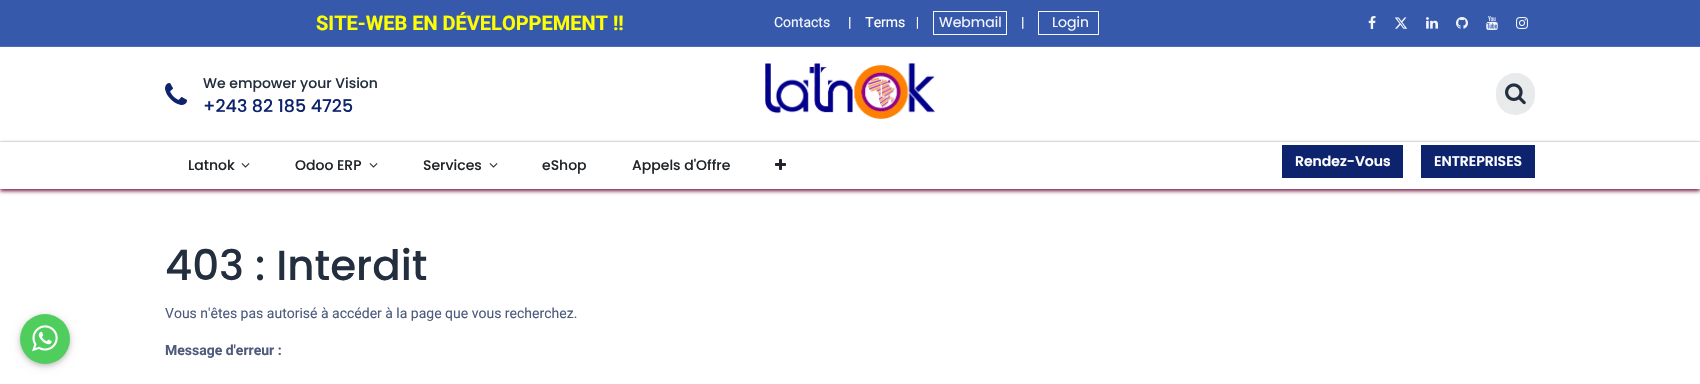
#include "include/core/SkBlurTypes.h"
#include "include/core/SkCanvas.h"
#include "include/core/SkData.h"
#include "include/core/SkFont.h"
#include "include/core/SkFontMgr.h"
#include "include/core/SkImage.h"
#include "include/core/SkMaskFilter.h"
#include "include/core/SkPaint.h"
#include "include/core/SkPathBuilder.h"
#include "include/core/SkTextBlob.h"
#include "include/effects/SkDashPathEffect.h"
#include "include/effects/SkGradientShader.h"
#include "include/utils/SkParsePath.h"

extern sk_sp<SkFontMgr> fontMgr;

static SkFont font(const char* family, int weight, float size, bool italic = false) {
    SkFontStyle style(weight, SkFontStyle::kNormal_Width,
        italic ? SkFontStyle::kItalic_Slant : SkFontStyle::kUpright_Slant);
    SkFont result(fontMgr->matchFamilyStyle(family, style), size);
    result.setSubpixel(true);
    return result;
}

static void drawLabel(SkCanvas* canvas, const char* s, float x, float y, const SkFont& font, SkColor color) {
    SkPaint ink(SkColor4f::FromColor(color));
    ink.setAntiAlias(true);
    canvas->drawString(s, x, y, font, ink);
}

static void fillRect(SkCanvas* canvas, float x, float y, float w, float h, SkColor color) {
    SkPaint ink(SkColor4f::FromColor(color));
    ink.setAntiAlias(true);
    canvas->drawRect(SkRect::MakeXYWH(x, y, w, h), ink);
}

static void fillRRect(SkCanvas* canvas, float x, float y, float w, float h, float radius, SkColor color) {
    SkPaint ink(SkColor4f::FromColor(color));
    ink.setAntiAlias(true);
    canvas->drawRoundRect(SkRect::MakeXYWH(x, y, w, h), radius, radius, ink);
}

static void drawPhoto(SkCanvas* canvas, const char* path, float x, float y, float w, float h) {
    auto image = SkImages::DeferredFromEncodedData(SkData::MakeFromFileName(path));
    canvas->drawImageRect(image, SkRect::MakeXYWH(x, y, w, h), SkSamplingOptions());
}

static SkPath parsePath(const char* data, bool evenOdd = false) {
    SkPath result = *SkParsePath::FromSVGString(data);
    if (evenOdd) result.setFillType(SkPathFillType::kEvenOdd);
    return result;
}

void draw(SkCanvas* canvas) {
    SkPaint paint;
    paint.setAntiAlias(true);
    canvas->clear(0xFFFFFFFF);
    fillRect(canvas, 0, 0, 1700, 46, 0xFF3659AB);
    fillRect(canvas, 0, 46, 1700, 1, 0xFF4E6DB5);
    SkFont font1 = font("Roboto", 700, 20);
    drawLabel(canvas, "SITE-WEB EN DÉVELOPPEMENT !!", 316, 30, font1, 0xFFFFFF00);
    SkFont font2 = font("Roboto", 400, 14);
    drawLabel(canvas, "Contacts", 774, 27, font2, 0xFFF3F6FC);
    drawLabel(canvas, "|    Terms   |", 848, 27, font2, 0xFFFFFFFF);
    paint.setStroke(true);
    paint.setStrokeWidth(1);
    paint.setColor(0xFFF3F6FC);
    canvas->drawRect(SkRect::MakeXYWH(933.5f, 11.5f, 73, 23), paint);
    SkFont font3 = font("Poppins", 400, 14);
    drawLabel(canvas, "Webmail", 939, 27, font3, 0xFFF3F6FC);
    drawLabel(canvas, "|", 1021, 27, font2, 0xFFFFFFFF);
    canvas->drawRect(SkRect::MakeXYWH(1038.5f, 11.5f, 60, 23), paint);
    drawLabel(canvas, "Login", 1052, 27, font3, 0xFFF3F6FC);
    drawPhoto(canvas, "assets/img1.png", 1368, 16, 8, 13);
    drawPhoto(canvas, "assets/img2.png", 1394, 17, 14, 12);
    drawPhoto(canvas, "assets/img3.png", 1426, 17, 12, 12);
    drawPhoto(canvas, "assets/img4.png", 1456, 17, 12, 12);
    drawPhoto(canvas, "assets/img5.png", 1486, 16, 12, 14);
    drawPhoto(canvas, "assets/img6.png", 1516, 17, 12, 12);
    fillRect(canvas, 0, 141, 1700, 1, 0xFFEAEBEF);
    drawPhoto(canvas, "assets/img7.png", 165, 83, 22, 22);
    SkFont font4 = font("Poppins", 500, 14);
    drawLabel(canvas, "We empower your Vision", 203, 88, font4, 0xFF232F3E);
    SkFont font5 = font("Poppins", 500, 17.5f);
    drawLabel(canvas, "+243 82 185 4725", 203, 112, font5, 0xFF0D236D);
    drawPhoto(canvas, "assets/img8.png", 765, 63, 170, 56);
    fillRRect(canvas, 1496, 73, 39, 42, 19.5f, 0xFFE9EAEC);
    drawPhoto(canvas, "assets/img9.png", 1505, 83, 21, 22);
    canvas->save();
    canvas->clipPath(parsePath("M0 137H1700V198H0ZM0 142H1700V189H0Z", true), true);
    paint.setStroke(false);
    paint.setColor(0xFF731842);
    paint.setMaskFilter(SkMaskFilter::MakeBlur(kNormal_SkBlurStyle, 2));
    canvas->drawRect(SkRect::MakeXYWH(0, 144, 1700, 47), paint);
    paint.setMaskFilter(nullptr);
    canvas->restore();
    drawLabel(canvas, "Latnok", 188, 170, font4, 0xFF212529);
    drawPhoto(canvas, "assets/img10.png", 241, 163, 9, 5);
    drawLabel(canvas, "Odoo ERP", 295, 170, font4, 0xFF212529);
    drawPhoto(canvas, "assets/img10.png", 369, 163, 9, 5);
    drawLabel(canvas, "Services", 423, 170, font4, 0xFF212529);
    drawPhoto(canvas, "assets/img10.png", 489, 163, 9, 5);
    drawLabel(canvas, "eShop", 542, 170, font4, 0xFF212529);
    drawLabel(canvas, "Appels d'Offre", 632, 170, font4, 0xFF212529);
    drawPhoto(canvas, "assets/img11.png", 775, 159, 11, 11);
    fillRect(canvas, 1282, 145, 121, 33, 0xFF0D236D);
    SkFont font6 = font("Poppins", 600, 14);
    drawLabel(canvas, "Rendez-Vous", 1295, 166, font6, 0xFFFFFFFF);
    fillRect(canvas, 1421, 145, 114, 33, 0xFF0D236D);
    drawLabel(canvas, "ENTREPRISES", 1434, 166, font6, 0xFFFFFFFF);
    paint.setColor(0x1F000000);
    paint.setMaskFilter(SkMaskFilter::MakeBlur(kNormal_SkBlurStyle, 5));
    canvas->drawRoundRect(SkRect::MakeXYWH(20, 316, 50, 50), 25, 25, paint);
    paint.setMaskFilter(nullptr);
    paint.setColor(0x29000000);
    paint.setMaskFilter(SkMaskFilter::MakeBlur(kNormal_SkBlurStyle, 2));
    canvas->drawRoundRect(SkRect::MakeXYWH(20, 316, 50, 50), 25, 25, paint);
    paint.setMaskFilter(nullptr);
    paint.setColor(0xFF4FCE5D);
    canvas->drawCircle(45, 339, 25, paint);
    drawPhoto(canvas, "assets/img12.png", 32, 325, 26, 27);
    SkFont font7 = font("Poppins", 500, 42);
    drawLabel(canvas, "403 : Interdit", 165, 280, font7, 0xFF232F3E);
    drawLabel(canvas, "Vous n'êtes pas autorisé à accéder à la page que vous recherchez.", 165, 318, font2, 0xFF4D5B7C);
    SkFont font8 = font("Roboto", 700, 14);
    drawLabel(canvas, "Message d'erreur :", 165, 355, font8, 0xFF4D5B7C);
}
